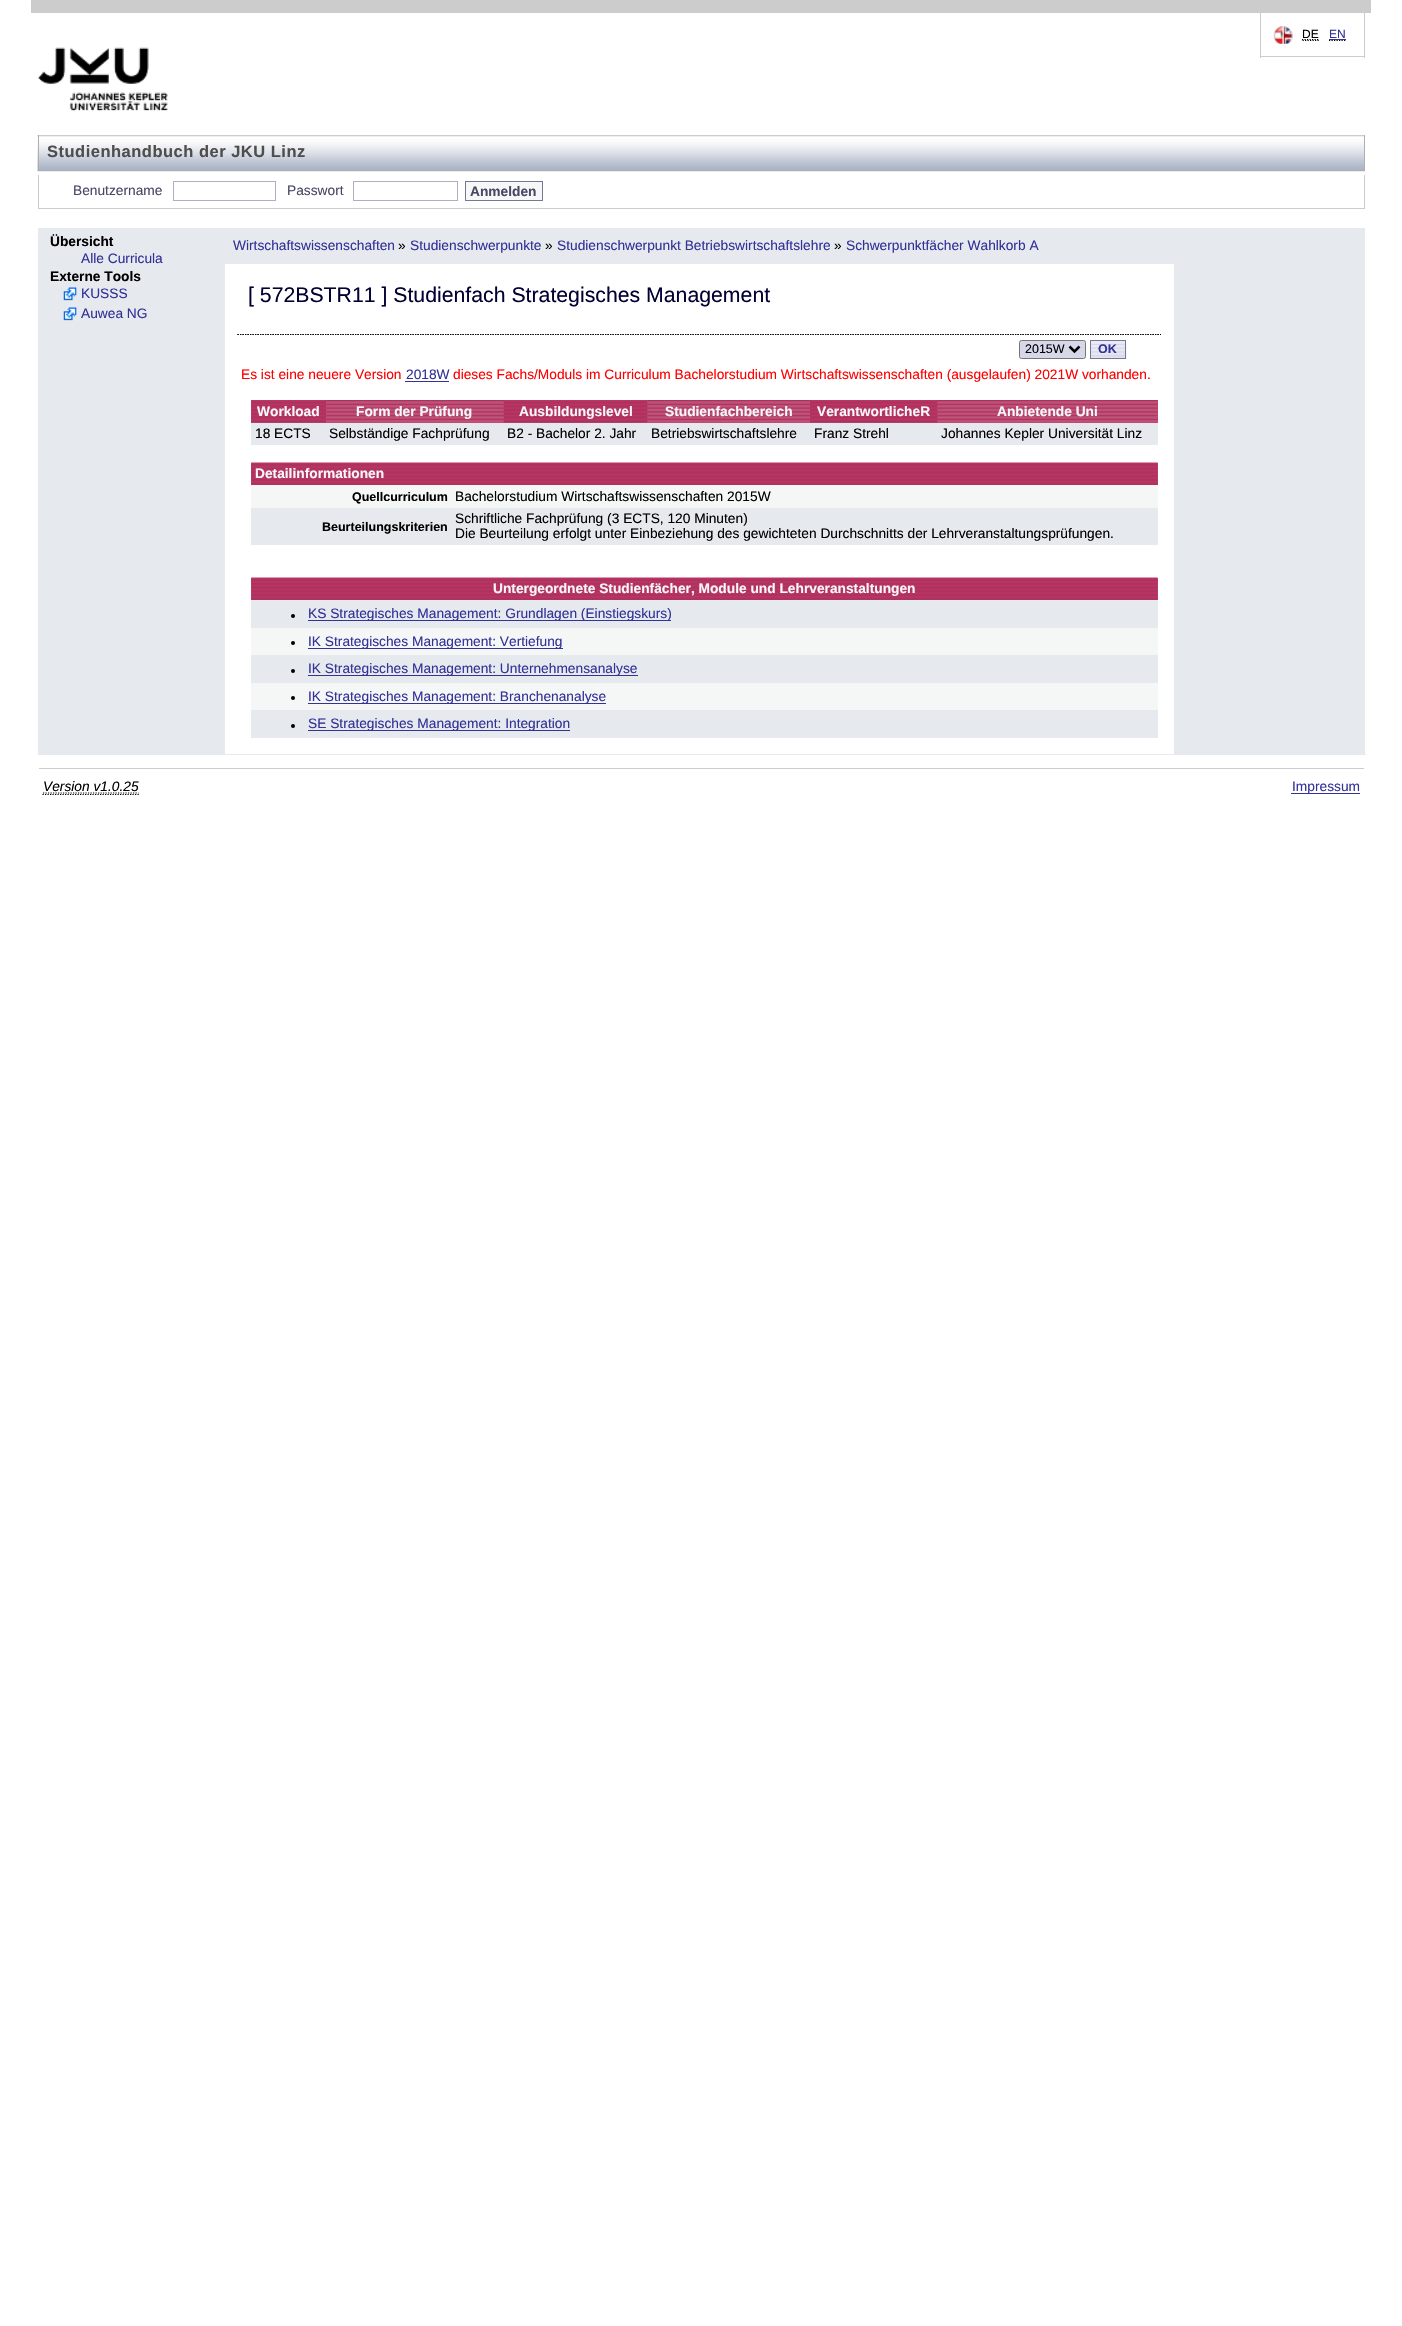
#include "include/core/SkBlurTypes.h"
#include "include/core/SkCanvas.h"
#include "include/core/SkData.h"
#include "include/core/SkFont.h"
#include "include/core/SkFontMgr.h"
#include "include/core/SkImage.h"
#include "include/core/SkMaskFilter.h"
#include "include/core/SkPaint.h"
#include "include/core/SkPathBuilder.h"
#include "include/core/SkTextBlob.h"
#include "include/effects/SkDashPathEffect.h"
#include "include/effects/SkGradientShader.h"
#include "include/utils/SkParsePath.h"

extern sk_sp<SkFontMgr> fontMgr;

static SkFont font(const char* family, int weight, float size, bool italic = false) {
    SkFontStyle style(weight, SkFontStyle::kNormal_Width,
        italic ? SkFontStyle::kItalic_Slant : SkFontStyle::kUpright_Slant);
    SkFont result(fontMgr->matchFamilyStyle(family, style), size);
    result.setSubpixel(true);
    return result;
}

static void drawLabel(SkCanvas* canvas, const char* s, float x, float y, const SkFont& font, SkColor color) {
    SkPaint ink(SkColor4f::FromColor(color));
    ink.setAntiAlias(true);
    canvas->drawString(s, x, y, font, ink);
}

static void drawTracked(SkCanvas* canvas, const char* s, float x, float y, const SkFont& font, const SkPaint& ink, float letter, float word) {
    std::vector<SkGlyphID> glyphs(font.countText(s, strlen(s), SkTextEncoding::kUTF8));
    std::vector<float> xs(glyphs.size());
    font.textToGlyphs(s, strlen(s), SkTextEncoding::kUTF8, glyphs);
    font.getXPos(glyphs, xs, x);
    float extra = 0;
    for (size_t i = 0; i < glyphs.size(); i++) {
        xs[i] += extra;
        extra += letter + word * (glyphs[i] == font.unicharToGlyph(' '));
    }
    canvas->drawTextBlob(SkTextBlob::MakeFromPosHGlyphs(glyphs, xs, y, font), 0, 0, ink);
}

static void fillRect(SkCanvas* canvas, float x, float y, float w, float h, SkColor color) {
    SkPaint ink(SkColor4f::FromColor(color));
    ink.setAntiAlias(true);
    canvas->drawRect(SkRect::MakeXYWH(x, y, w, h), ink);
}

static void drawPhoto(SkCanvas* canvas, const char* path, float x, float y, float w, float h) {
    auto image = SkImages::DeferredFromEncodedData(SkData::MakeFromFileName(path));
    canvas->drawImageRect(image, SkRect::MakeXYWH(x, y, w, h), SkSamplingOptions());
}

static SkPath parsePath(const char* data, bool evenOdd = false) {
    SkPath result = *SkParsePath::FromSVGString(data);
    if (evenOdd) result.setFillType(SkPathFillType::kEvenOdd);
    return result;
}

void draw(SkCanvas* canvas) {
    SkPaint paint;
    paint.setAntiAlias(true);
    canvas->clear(0xFFFFFFFF);
    fillRect(canvas, 31, 0, 1340, 13, 0xFFCCCCCC);
    fillRect(canvas, 1364, 13, 1, 45, 0xFFCCCCCC);
    fillRect(canvas, 1260, 56, 105, 1, 0xFFCCCCCC);
    fillRect(canvas, 1260, 13, 1, 45, 0xFFCCCCCC);
    drawPhoto(canvas, "assets/img1.png", 1273, 26, 20, 18);
    SkFont font1 = font("Liberation Sans", 400, 12);
    drawLabel(canvas, "DE", 1302, 38, font1, 0xFF000000);
    paint.setStroke(true);
    paint.setStrokeWidth(1.2f);
    paint.setColor(0xFF000000);
    paint.setPathEffect(SkDashPathEffect::Make({{1.25f, 1.25f}}, 0));
    canvas->drawPath(parsePath("M1302.5 40.5H1319M1302 39.5H1319.5"), paint);
    paint.setPathEffect(nullptr);
    drawLabel(canvas, "EN", 1329, 38, font1, 0xFF333298);
    paint.setPathEffect(SkDashPathEffect::Make({{1.25f, 1.25f}}, 0));
    canvas->drawPath(parsePath("M1329 40.5H1346"), paint);
    paint.setPathEffect(nullptr);
    paint.setColor(0xFF333298);
    paint.setPathEffect(SkDashPathEffect::Make({{1.25f, 1.25f}}, 0));
    canvas->drawPath(parsePath("M1329 39.5H1346.5"), paint);
    paint.setPathEffect(nullptr);
    fillRect(canvas, 1329, 39, 17, 1, 0xFF333298);
    drawPhoto(canvas, "assets/img2.png", 37, 47, 131, 64);
    drawPhoto(canvas, "assets/img3.png", 37, 135, 1328, 37);
    fillRect(canvas, 1364, 135, 1, 36, 0xFFAEAEAE);
    fillRect(canvas, 38, 170, 1327, 1, 0xFFAEAEAE);
    fillRect(canvas, 38, 135, 1, 36, 0xFFAEAEAE);
    SkFont font2 = font("Liberation Sans", 700, 16.5f);
    paint.setStroke(false);
    paint.setColor(0xFF4E4E4E);
    drawTracked(canvas, "Studienhandbuch der JKU Linz", 47, 157, font2, paint, 0.5f, 0);
    fillRect(canvas, 1364, 175, 1, 34, 0xFFCCCCCC);
    fillRect(canvas, 38, 208, 1327, 1, 0xFFCCCCCC);
    fillRect(canvas, 38, 175, 1, 34, 0xFFCCCCCC);
    SkFont font3 = font("Liberation Sans", 400, 13.75f);
    drawLabel(canvas, "Benutzername", 73, 195, font3, 0xFF474766);
    paint.setStroke(true);
    paint.setStrokeWidth(1);
    paint.setColor(0xFFB0AEC3);
    canvas->drawRect(SkRect::MakeXYWH(173.5f, 181.5f, 102, 19), paint);
    drawLabel(canvas, "Passwort", 287, 195, font3, 0xFF474766);
    canvas->drawRect(SkRect::MakeXYWH(353.5f, 181.5f, 104, 19), paint);
    paint.setStroke(false);
    paint.setColor(0xFFF7F7F7);
    canvas->drawRect(SkRect::MakeXYWH(465.5f, 181.5f, 77, 19), paint);
    paint.setStroke(true);
    paint.setColor(0xFF747895);
    canvas->drawRect(SkRect::MakeXYWH(465.5f, 181.5f, 77, 19), paint);
    SkFont font4 = font("Liberation Sans", 700, 13.75f);
    drawLabel(canvas, "Anmelden", 470, 196, font4, 0xFF474766);
    fillRect(canvas, 38, 228, 187, 526, 0xFFE6E9EE);
    drawLabel(canvas, "Übersicht", 50, 246, font4, 0xFF000000);
    drawLabel(canvas, "Alle Curricula", 81, 263, font3, 0xFF333298);
    drawLabel(canvas, "Externe Tools", 50, 281, font4, 0xFF000000);
    drawPhoto(canvas, "assets/img4.png", 63, 287, 14, 14);
    drawLabel(canvas, "KUSSS", 81, 298, font3, 0xFF333298);
    drawPhoto(canvas, "assets/img5.png", 63, 307, 14, 14);
    drawLabel(canvas, "Auwea NG", 81, 318, font3, 0xFF333298);
    fillRect(canvas, 225, 228, 1140, 36, 0xFFE6E9EE);
    drawLabel(canvas, "Wirtschaftswissenschaften", 233, 250, font3, 0xFF333298);
    drawLabel(canvas, "»", 398, 250, font3, 0xFF000000);
    drawLabel(canvas, "Studienschwerpunkte", 410, 250, font3, 0xFF333298);
    drawLabel(canvas, "»", 545, 250, font3, 0xFF000000);
    drawLabel(canvas, "Studienschwerpunkt Betriebswirtschaftslehre", 557, 250, font3, 0xFF333298);
    drawLabel(canvas, "»", 834, 250, font3, 0xFF000000);
    drawLabel(canvas, "Schwerpunktfächer Wahlkorb A", 846, 250, font3, 0xFF333298);
    fillRect(canvas, 1174, 263, 1, 491, 0xFFE6E9EE);
    paint.setStrokeWidth(1.2f);
    paint.setColor(0xFF000000);
    paint.setPathEffect(SkDashPathEffect::Make({{1.25f, 1.25f}}, 0));
    canvas->drawPath(parsePath("M237.5 334.5H1161"), paint);
    paint.setPathEffect(nullptr);
    paint.setPathEffect(SkDashPathEffect::Make({{1.25f, 1.25f}}, 0));
    canvas->drawPath(parsePath("M237.5 334.5H1161"), paint);
    paint.setPathEffect(nullptr);
    SkFont font5 = font("Liberation Sans", 400, 21.25f);
    drawLabel(canvas, "[ 572BSTR11 ] Studienfach Strategisches Management", 248, 302, font5, 0xFF000033);
    paint.setStroke(false);
    paint.setColor(0xFFD6D7E9);
    canvas->drawRoundRect(SkRect::MakeXYWH(1019.5f, 340.5f, 66, 18), 2, 2, paint);
    paint.setStroke(true);
    paint.setStrokeWidth(1);
    paint.setColor(0xFF767676);
    canvas->drawRoundRect(SkRect::MakeXYWH(1019.5f, 340.5f, 66, 18), 2, 2, paint);
    paint.setStrokeWidth(2.5f);
    paint.setColor(0xFF000000);
    canvas->drawPath(parsePath("M1069.5 346.5L1074.5 351.5L1079.5 346.5"), paint);
    SkFont font6 = font("Liberation Sans", 400, 12.5f);
    drawLabel(canvas, "2015W", 1025, 353, font6, 0xFF000000);
    fillRect(canvas, 1091, 341, 34, 17, 0xFFD6D7E9);
    drawPhoto(canvas, "assets/img6.png", 1091, 341, 36, 18);
    paint.setStrokeWidth(1);
    paint.setColor(0xFF747895);
    canvas->drawRect(SkRect::MakeXYWH(1090.5f, 340.5f, 35, 18), paint);
    SkFont font7 = font("Liberation Sans", 700, 12.5f);
    drawLabel(canvas, "OK", 1098, 353, font7, 0xFF333298);
    drawLabel(canvas, "Es ist eine neuere Version", 241, 379, font3, 0xFFFF0000);
    drawLabel(canvas, "2018W", 406, 379, font3, 0xFF333298);
    fillRect(canvas, 405, 381, 44, 1, 0xFF333298);
    drawLabel(canvas, "dieses Fachs/Moduls im Curriculum Bachelorstudium Wirtschaftswissenschaften (ausgelaufen) 2021W vorhanden.", 453, 379, font3, 0xFFFF0000);
    fillRect(canvas, 251, 400, 75, 23, 0xFFB24372);
    drawPhoto(canvas, "assets/img7.png", 251, 400, 75, 23);
    drawLabel(canvas, "Workload", 257, 416, font4, 0xFFF7F7F7);
    fillRect(canvas, 326, 400, 178, 23, 0xFFD03B6F);
    drawPhoto(canvas, "assets/img8.png", 326, 400, 178, 23);
    drawLabel(canvas, "Form der Prüfung", 356, 416, font4, 0xFFF7F7F7);
    fillRect(canvas, 504, 400, 144, 23, 0xFFB24372);
    drawPhoto(canvas, "assets/img9.png", 503, 400, 145, 23);
    drawLabel(canvas, "Ausbildungslevel", 519, 416, font4, 0xFFF7F7F7);
    fillRect(canvas, 648, 422, 162, 1, 0xFFD03B6F);
    drawPhoto(canvas, "assets/img10.png", 647, 400, 163, 23);
    drawLabel(canvas, "Studienfachbereich", 665, 416, font4, 0xFFF7F7F7);
    fillRect(canvas, 810, 400, 128, 23, 0xFFB24372);
    drawPhoto(canvas, "assets/img11.png", 810, 400, 128, 23);
    drawLabel(canvas, "VerantwortlicheR", 817, 416, font4, 0xFFF7F7F7);
    fillRect(canvas, 938, 400, 220, 23, 0xFFD03B6F);
    drawPhoto(canvas, "assets/img12.png", 937, 400, 221, 23);
    drawLabel(canvas, "Anbietende Uni", 997, 416, font4, 0xFFF7F7F7);
    fillRect(canvas, 251, 423, 907, 22, 0xFFE6E9ED);
    drawLabel(canvas, "18 ECTS", 255, 438, font3, 0xFF000000);
    drawLabel(canvas, "Selbständige Fachprüfung", 329, 438, font3, 0xFF000000);
    drawLabel(canvas, "B2 - Bachelor 2. Jahr", 507, 438, font3, 0xFF000000);
    drawLabel(canvas, "Betriebswirtschaftslehre", 651, 438, font3, 0xFF000000);
    drawLabel(canvas, "Franz Strehl", 814, 438, font3, 0xFF000000);
    drawLabel(canvas, "Johannes Kepler Universität Linz", 941, 438, font3, 0xFF000000);
    fillRect(canvas, 251, 463, 907, 22, 0xFFB24372);
    drawPhoto(canvas, "assets/img13.png", 251, 462, 907, 23);
    drawLabel(canvas, "Detailinformationen", 255, 478, font4, 0xFFF7F7F7);
    fillRect(canvas, 251, 485, 907, 23, 0xFFF5F7F7);
    drawLabel(canvas, "Quellcurriculum", 352, 501, font7, 0xFF000000);
    drawLabel(canvas, "Bachelorstudium Wirtschaftswissenschaften 2015W", 455, 501, font3, 0xFF000000);
    fillRect(canvas, 251, 508, 907, 37, 0xFFE6E9ED);
    drawLabel(canvas, "Beurteilungskriterien", 322, 531, font7, 0xFF000000);
    drawLabel(canvas, "Schriftliche Fachprüfung (3 ECTS, 120 Minuten)", 455, 523, font3, 0xFF000000);
    drawLabel(canvas, "Die Beurteilung erfolgt unter Einbeziehung des gewichteten Durchschnitts der Lehrveranstaltungsprüfungen.", 455, 538, font3, 0xFF000000);
    fillRect(canvas, 251, 578, 907, 22, 0xFFB24372);
    drawPhoto(canvas, "assets/img14.png", 251, 577, 907, 23);
    drawLabel(canvas, "Untergeordnete Studienfächer, Module und Lehrveranstaltungen", 493, 593, font4, 0xFFF7F7F7);
    fillRect(canvas, 251, 600, 907, 28, 0xFFE6E9ED);
    paint.setStroke(false);
    paint.setColor(0xFF000000);
    canvas->drawCircle(293, 616, 2, paint);
    fillRect(canvas, 308, 620, 363, 1, 0xFF333298);
    drawLabel(canvas, "KS Strategisches Management: Grundlagen (Einstiegskurs)", 308, 618, font3, 0xFF333298);
    fillRect(canvas, 251, 628, 907, 27, 0xFFF5F7F7);
    canvas->drawCircle(293, 643, 2, paint);
    fillRect(canvas, 308, 648, 255, 1, 0xFF333298);
    drawLabel(canvas, "IK Strategisches Management: Vertiefung", 308, 646, font3, 0xFF333298);
    fillRect(canvas, 251, 655, 907, 28, 0xFFE6E9ED);
    canvas->drawCircle(293, 671, 2, paint);
    fillRect(canvas, 308, 675, 330, 1, 0xFF333298);
    drawLabel(canvas, "IK Strategisches Management: Unternehmensanalyse", 308, 673, font3, 0xFF333298);
    fillRect(canvas, 251, 683, 907, 27, 0xFFF5F7F7);
    canvas->drawCircle(293, 698, 2, paint);
    fillRect(canvas, 308, 703, 298, 1, 0xFF333298);
    drawLabel(canvas, "IK Strategisches Management: Branchenanalyse", 308, 701, font3, 0xFF333298);
    fillRect(canvas, 251, 710, 907, 28, 0xFFE6E9ED);
    canvas->drawCircle(293, 726, 2, paint);
    fillRect(canvas, 308, 730, 262, 1, 0xFF333298);
    drawLabel(canvas, "SE Strategisches Management: Integration", 308, 728, font3, 0xFF333298);
    fillRect(canvas, 1175, 264, 190, 490, 0xFFE6E9EE);
    fillRect(canvas, 38, 754, 1328, 1, 0xFFE6E9EE);
    fillRect(canvas, 39, 768, 1325, 1, 0xFFCCCCCC);
    SkFont font8 = font("Liberation Sans", 400, 13.75f, true);
    drawLabel(canvas, "Version v1.0.25", 43, 791, font8, 0xFF000000);
    paint.setStroke(true);
    paint.setStrokeWidth(1.2f);
    paint.setPathEffect(SkDashPathEffect::Make({{1.25f, 1.25f}}, 0));
    canvas->drawPath(parsePath("M42.5 794.5H139"), paint);
    paint.setPathEffect(nullptr);
    paint.setPathEffect(SkDashPathEffect::Make({{1.25f, 1.25f}}, 0));
    canvas->drawPath(parsePath("M43 793H138.5"), paint);
    paint.setPathEffect(nullptr);
    fillRect(canvas, 1291, 793, 69, 1, 0xFF333298);
    drawLabel(canvas, "Impressum", 1292, 791, font3, 0xFF333298);
}
